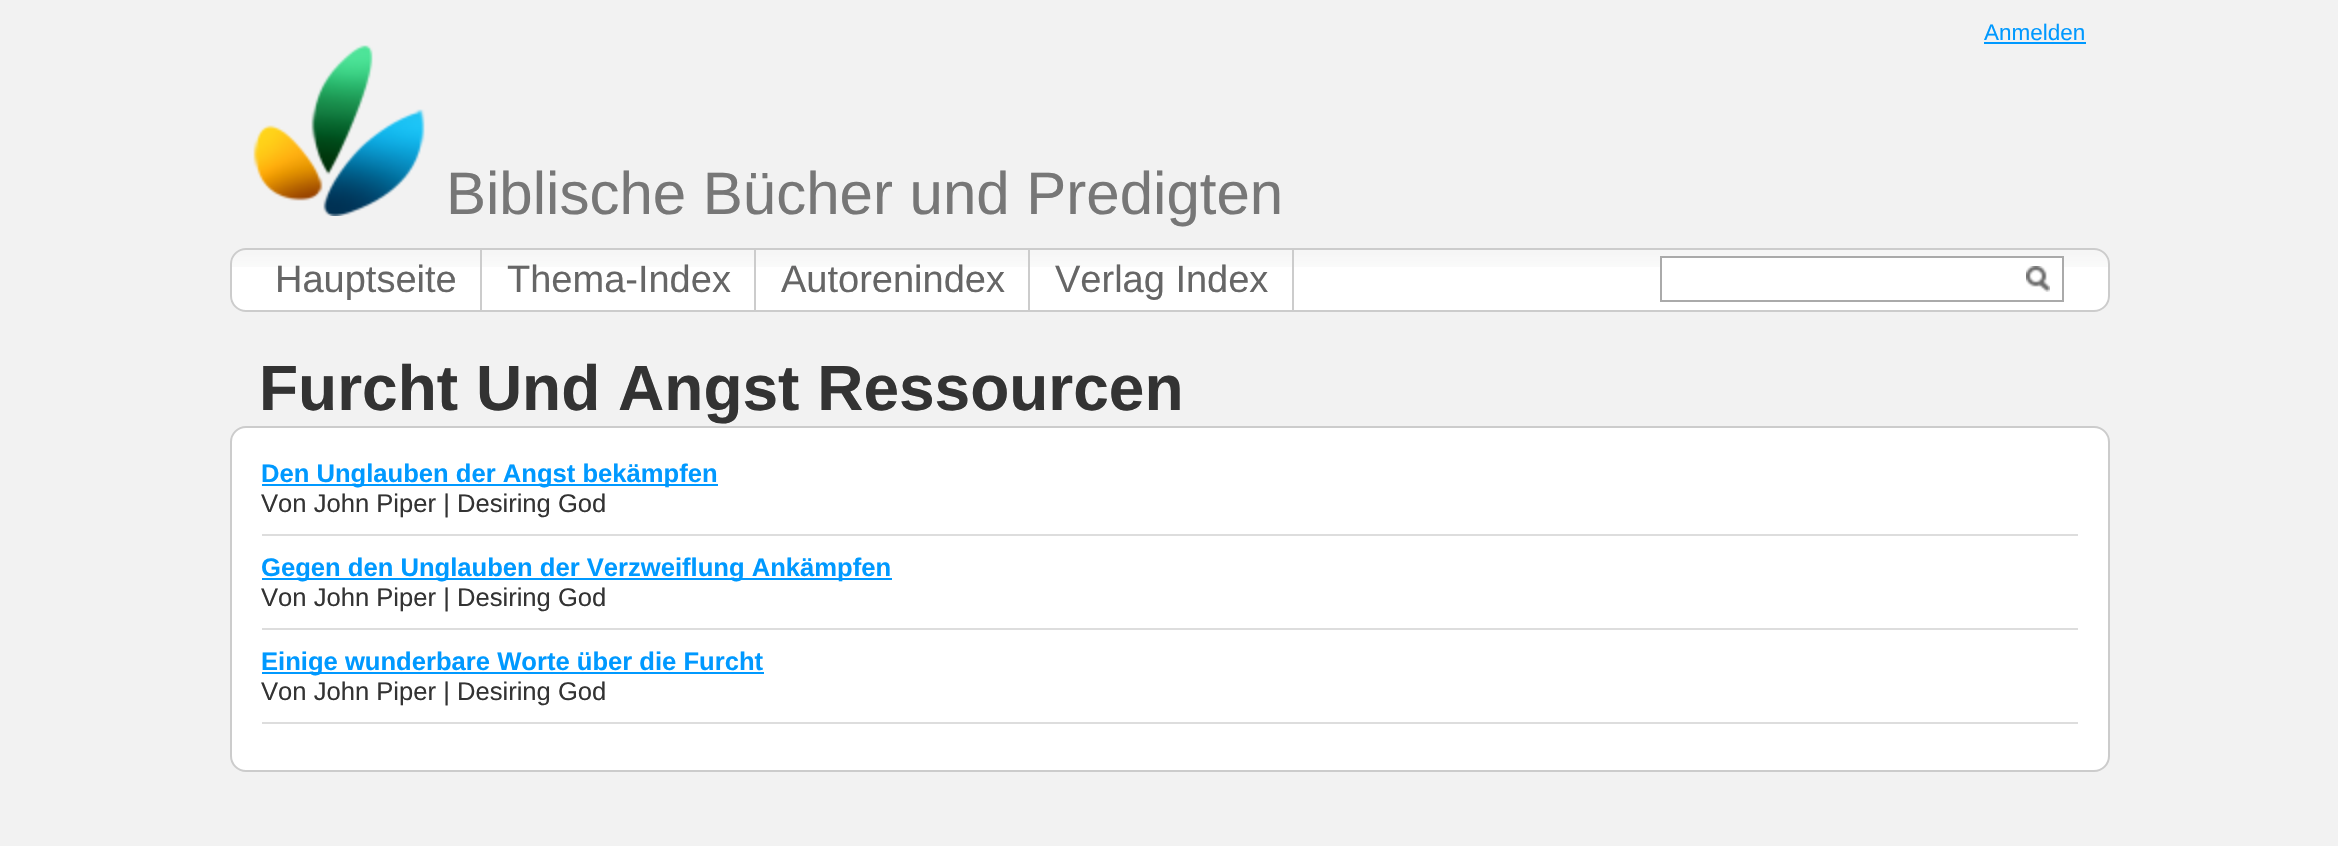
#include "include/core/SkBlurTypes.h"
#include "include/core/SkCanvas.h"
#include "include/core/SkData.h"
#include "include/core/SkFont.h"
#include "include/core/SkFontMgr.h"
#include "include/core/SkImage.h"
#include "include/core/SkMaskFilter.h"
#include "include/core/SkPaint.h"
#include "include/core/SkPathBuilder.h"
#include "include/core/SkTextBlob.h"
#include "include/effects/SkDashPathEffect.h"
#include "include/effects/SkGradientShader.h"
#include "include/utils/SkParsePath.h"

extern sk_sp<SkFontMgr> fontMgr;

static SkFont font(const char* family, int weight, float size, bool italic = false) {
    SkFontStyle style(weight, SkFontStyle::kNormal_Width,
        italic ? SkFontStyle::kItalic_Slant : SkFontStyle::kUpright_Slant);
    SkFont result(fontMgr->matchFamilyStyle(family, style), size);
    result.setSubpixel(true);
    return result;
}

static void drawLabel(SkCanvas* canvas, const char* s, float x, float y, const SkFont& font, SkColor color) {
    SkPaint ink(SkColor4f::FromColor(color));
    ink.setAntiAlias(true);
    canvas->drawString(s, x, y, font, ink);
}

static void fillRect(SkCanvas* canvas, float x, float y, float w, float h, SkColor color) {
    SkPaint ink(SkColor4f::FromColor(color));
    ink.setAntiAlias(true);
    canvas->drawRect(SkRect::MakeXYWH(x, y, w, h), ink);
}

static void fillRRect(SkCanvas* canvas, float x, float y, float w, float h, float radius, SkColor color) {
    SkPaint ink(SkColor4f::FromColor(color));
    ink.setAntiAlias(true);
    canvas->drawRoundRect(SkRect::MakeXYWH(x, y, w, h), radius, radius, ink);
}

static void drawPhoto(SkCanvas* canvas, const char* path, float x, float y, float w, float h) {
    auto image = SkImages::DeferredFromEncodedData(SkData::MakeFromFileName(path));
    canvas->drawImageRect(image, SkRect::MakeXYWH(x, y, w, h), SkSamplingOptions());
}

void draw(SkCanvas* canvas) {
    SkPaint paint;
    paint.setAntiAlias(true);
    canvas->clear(0xFFF2F2F2);
    SkFont font1 = font("Liberation Sans", 400, 22.5f);
    drawLabel(canvas, "Anmelden", 1984, 40, font1, 0xFF0099FF);
    fillRect(canvas, 1984, 42, 102, 2, 0xFF0099FF);
    drawPhoto(canvas, "assets/img1.png", 253, 45, 172, 171);
    SkFont font2 = font("Liberation Sans", 400, 60);
    drawLabel(canvas, "Biblische Bücher und Predigten", 446, 214, font2, 0xFF777777);
    fillRRect(canvas, 230, 248, 1880, 64, 16, 0xFFFFFFFF);
    drawPhoto(canvas, "assets/img2.png", 230, 250, 1880, 17);
    paint.setStroke(true);
    paint.setStrokeWidth(2);
    paint.setColor(0xFFCCCCCC);
    canvas->drawRoundRect(SkRect::MakeXYWH(231, 249, 1878, 62), 15, 15, paint);
    fillRect(canvas, 480, 250, 2, 60, 0xFFCCCCCC);
    SkFont font3 = font("Liberation Sans", 400, 38);
    drawLabel(canvas, "Hauptseite", 275, 292, font3, 0xFF666666);
    fillRect(canvas, 754, 250, 2, 60, 0xFFCCCCCC);
    drawLabel(canvas, "Thema-Index", 507, 292, font3, 0xFF666666);
    fillRect(canvas, 1028, 250, 2, 60, 0xFFCCCCCC);
    drawLabel(canvas, "Autorenindex", 781, 292, font3, 0xFF666666);
    fillRect(canvas, 1292, 250, 2, 60, 0xFFCCCCCC);
    drawLabel(canvas, "Verlag Index", 1055, 292, font3, 0xFF666666);
    fillRect(canvas, 1662, 258, 400, 9, 0xFFFFFFFF);
    paint.setColor(0xFFAAAAAA);
    canvas->drawRect(SkRect::MakeXYWH(1661, 257, 402, 44), paint);
    drawPhoto(canvas, "assets/img3.png", 2026, 266, 24, 26);
    SkFont font4 = font("Liberation Sans", 700, 64);
    drawLabel(canvas, "Furcht Und Angst Ressourcen", 259, 410, font4, 0xFF333333);
    paint.setStroke(false);
    paint.setColor(0xFFFFFFFF);
    canvas->drawRoundRect(SkRect::MakeXYWH(231, 427, 1878, 344), 15, 15, paint);
    paint.setStroke(true);
    paint.setColor(0xFFCCCCCC);
    canvas->drawRoundRect(SkRect::MakeXYWH(231, 427, 1878, 344), 15, 15, paint);
    fillRect(canvas, 262, 534, 1816, 2, 0xFFDDDDDD);
    fillRect(canvas, 262, 484, 456, 2, 0xFF0099FF);
    SkFont font5 = font("Liberation Sans", 700, 25.6f);
    drawLabel(canvas, "Den Unglauben der Angst bekämpfen", 261, 482, font5, 0xFF0099FF);
    SkFont font6 = font("Liberation Sans", 400, 25.6f);
    drawLabel(canvas, "Von John Piper | Desiring God", 261, 512, font6, 0xFF333333);
    fillRect(canvas, 262, 628, 1816, 2, 0xFFDDDDDD);
    fillRect(canvas, 262, 578, 630, 2, 0xFF0099FF);
    drawLabel(canvas, "Gegen den Unglauben der Verzweiflung Ankämpfen", 261, 576, font5, 0xFF0099FF);
    drawLabel(canvas, "Von John Piper | Desiring God", 261, 606, font6, 0xFF333333);
    fillRect(canvas, 262, 722, 1816, 2, 0xFFDDDDDD);
    fillRect(canvas, 262, 672, 502, 2, 0xFF0099FF);
    drawLabel(canvas, "Einige wunderbare Worte über die Furcht", 261, 670, font5, 0xFF0099FF);
    drawLabel(canvas, "Von John Piper | Desiring God", 261, 700, font6, 0xFF333333);
}
